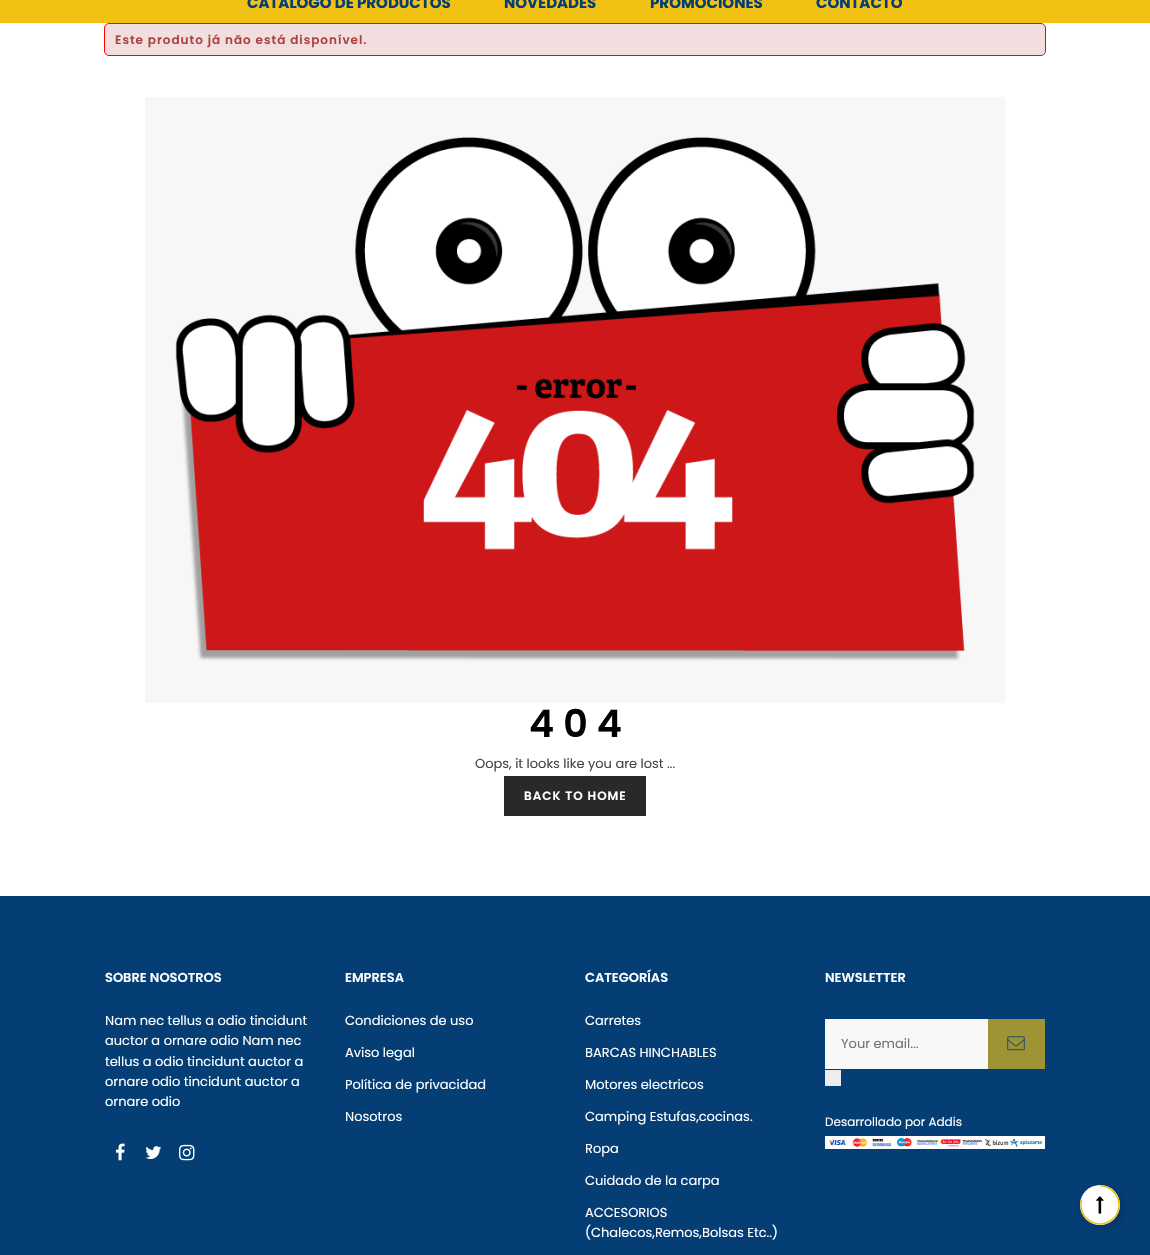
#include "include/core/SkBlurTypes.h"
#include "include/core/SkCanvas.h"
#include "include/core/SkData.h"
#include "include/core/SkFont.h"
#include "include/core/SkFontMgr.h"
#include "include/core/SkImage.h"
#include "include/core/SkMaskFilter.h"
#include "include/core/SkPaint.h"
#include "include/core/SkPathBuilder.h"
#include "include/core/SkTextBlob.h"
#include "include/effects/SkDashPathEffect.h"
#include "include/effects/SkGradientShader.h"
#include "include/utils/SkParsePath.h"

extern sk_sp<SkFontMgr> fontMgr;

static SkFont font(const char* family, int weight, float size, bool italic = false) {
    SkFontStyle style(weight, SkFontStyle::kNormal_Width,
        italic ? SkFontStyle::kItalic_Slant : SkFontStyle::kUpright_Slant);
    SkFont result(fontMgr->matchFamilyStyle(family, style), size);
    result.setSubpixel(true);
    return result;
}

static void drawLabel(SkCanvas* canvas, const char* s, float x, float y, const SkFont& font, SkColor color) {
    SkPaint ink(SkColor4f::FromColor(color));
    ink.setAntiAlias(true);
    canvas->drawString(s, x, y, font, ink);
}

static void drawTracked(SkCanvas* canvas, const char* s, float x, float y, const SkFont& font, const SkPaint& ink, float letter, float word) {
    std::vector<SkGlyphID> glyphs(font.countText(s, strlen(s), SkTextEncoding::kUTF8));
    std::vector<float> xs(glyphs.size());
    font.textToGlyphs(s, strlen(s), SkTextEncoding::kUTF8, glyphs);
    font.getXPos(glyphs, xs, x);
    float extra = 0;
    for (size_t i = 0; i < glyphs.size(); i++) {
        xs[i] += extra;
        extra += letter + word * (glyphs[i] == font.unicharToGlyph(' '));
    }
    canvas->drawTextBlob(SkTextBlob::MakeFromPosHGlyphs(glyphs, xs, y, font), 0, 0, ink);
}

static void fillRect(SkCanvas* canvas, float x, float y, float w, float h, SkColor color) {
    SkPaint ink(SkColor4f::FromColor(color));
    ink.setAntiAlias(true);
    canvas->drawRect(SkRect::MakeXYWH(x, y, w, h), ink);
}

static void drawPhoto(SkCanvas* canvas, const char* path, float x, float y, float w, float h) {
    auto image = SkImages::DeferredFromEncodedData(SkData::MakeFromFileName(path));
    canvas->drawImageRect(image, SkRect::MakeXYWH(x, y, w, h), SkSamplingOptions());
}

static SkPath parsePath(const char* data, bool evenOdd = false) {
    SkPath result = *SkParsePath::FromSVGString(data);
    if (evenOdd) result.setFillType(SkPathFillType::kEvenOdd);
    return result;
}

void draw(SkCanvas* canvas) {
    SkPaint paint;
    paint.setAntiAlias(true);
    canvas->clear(0xFFFFFFFF);
    fillRect(canvas, 0, 0, 1150, 23, 0xFFF1C213);
    SkFont font1 = font("Poppins", 700, 15);
    drawLabel(canvas, "CATÁLOGO DE PRODUCTOS", 247, 8, font1, 0xFF043E75);
    drawLabel(canvas, "NOVEDADES", 504, 8, font1, 0xFF043E75);
    drawLabel(canvas, "PROMOCIONES", 650, 8, font1, 0xFF043E75);
    drawLabel(canvas, "CONTACTO", 816, 8, font1, 0xFF043E75);
    paint.setColor(0xFFF2DEDE);
    canvas->drawRoundRect(SkRect::MakeXYWH(104.5f, 23.5f, 941, 32), 4.5f, 4.5f, paint);
    paint.setStroke(true);
    paint.setStrokeWidth(1);
    paint.setColor(0xFFFF0000);
    canvas->drawRoundRect(SkRect::MakeXYWH(104.5f, 23.5f, 941, 32), 4.5f, 4.5f, paint);
    SkFont font2 = font("Poppins", 600, 12);
    paint.setStroke(false);
    paint.setColor(0xFFA94442);
    drawTracked(canvas, "Este produto já não está disponível.", 115, 44, font2, paint, 1, 0);
    drawPhoto(canvas, "assets/img1.png", 145, 97, 860, 606);
    SkFont font3 = font("Poppins", 600, 38);
    drawLabel(canvas, "4 0 4", 529, 737, font3, 0xFF000000);
    SkFont font4 = font("Poppins", 400, 13);
    drawLabel(canvas, "Oops, it looks like you are lost ...", 475, 768, font4, 0xFF444444);
    fillRect(canvas, 504, 776, 142, 40, 0xFF292929);
    paint.setColor(0xFFFFFFFF);
    drawTracked(canvas, "BACK TO HOME", 524, 800, font2, paint, 1, 0);
    fillRect(canvas, 0, 896, 1150, 359, 0xFF043E75);
    SkFont font5 = font("Poppins", 600, 13);
    drawLabel(canvas, "SOBRE NOSOTROS", 105, 982, font5, 0xFFFFFFFF);
    drawLabel(canvas, "Nam nec tellus a odio tincidunt", 105, 1025, font4, 0xFFFFFFFF);
    drawLabel(canvas, "auctor a ornare odio Nam nec", 105, 1045, font4, 0xFFFFFFFF);
    drawLabel(canvas, "tellus a odio tincidunt auctor a", 105, 1066, font4, 0xFFFFFFFF);
    drawLabel(canvas, "ornare odio tincidunt auctor a", 105, 1086, font4, 0xFFFFFFFF);
    drawLabel(canvas, "ornare odio", 105, 1106, font4, 0xFFFFFFFF);
    drawPhoto(canvas, "assets/img2.png", 115, 1143, 10, 18);
    drawPhoto(canvas, "assets/img3.png", 145, 1146, 17, 13);
    drawPhoto(canvas, "assets/img4.png", 179, 1144, 16, 17);
    drawLabel(canvas, "EMPRESA", 345, 982, font5, 0xFFFFFFFF);
    drawLabel(canvas, "Condiciones de uso", 345, 1025, font4, 0xFFFFFFFF);
    drawLabel(canvas, "Aviso legal", 345, 1057, font4, 0xFFFFFFFF);
    drawLabel(canvas, "Política de privacidad", 345, 1089, font4, 0xFFFFFFFF);
    drawLabel(canvas, "Nosotros", 345, 1121, font4, 0xFFFFFFFF);
    drawLabel(canvas, "CATEGORÍAS", 585, 982, font5, 0xFFFFFFFF);
    drawLabel(canvas, "Carretes", 585, 1025, font4, 0xFFFFFFFF);
    drawLabel(canvas, "BARCAS HINCHABLES", 585, 1057, font4, 0xFFFFFFFF);
    drawLabel(canvas, "Motores electricos", 585, 1089, font4, 0xFFFFFFFF);
    drawLabel(canvas, "Camping Estufas,cocinas.", 585, 1121, font4, 0xFFFFFFFF);
    drawLabel(canvas, "Ropa", 585, 1153, font4, 0xFFFFFFFF);
    drawLabel(canvas, "Cuidado de la carpa", 585, 1185, font4, 0xFFFFFFFF);
    drawLabel(canvas, "ACCESORIOS", 585, 1217, font4, 0xFFFFFFFF);
    drawLabel(canvas, "(Chalecos,Remos,Bolsas Etc..)", 585, 1237, font4, 0xFFFFFFFF);
    drawLabel(canvas, "NEWSLETTER", 825, 982, font5, 0xFFFFFFFF);
    fillRect(canvas, 825, 1019, 163, 50, 0xFFF8F8F8);
    drawLabel(canvas, "Your email...", 841, 1048, font4, 0xFF727272);
    fillRect(canvas, 988, 1019, 57, 50, 0xFF9E9435);
    drawPhoto(canvas, "assets/img5.png", 1007, 1036, 18, 15);
    paint.setColor(0xFFEDEDED);
    canvas->drawRect(SkRect::MakeXYWH(825.5f, 1070.5f, 15, 15), paint);
    paint.setStroke(true);
    paint.setColor(0xFFEAEAEA);
    canvas->drawRect(SkRect::MakeXYWH(825.5f, 1070.5f, 15, 15), paint);
    SkFont font6 = font("Poppins", 400, 12);
    drawLabel(canvas, "Desarrollado por Addis", 825, 1126, font6, 0xFFFFFFFF);
    drawPhoto(canvas, "assets/img6.png", 825, 1136, 220, 13);
    paint.setStroke(false);
    paint.setColor(0x26000000);
    paint.setMaskFilter(SkMaskFilter::MakeBlur(kNormal_SkBlurStyle, 5));
    canvas->drawRoundRect(SkRect::MakeXYWH(1082, 1188, 40, 40), 20, 20, paint);
    paint.setMaskFilter(nullptr);
    paint.setColor(0xFFFFFFFF);
    canvas->drawCircle(1100, 1205, 20, paint);
    paint.setStroke(true);
    paint.setStrokeWidth(1.6f);
    paint.setColor(0xFFF1C213);
    canvas->drawPath(parsePath("M1100 1186C1110.5 1186 1119 1194.5 1119 1205C1119 1215.5 1110.5 1224 1100 1224C1089.5 1224 1081 1215.5 1081 1205C1081 1203 1081 1201.5 1081.5 1200"), paint);
    drawPhoto(canvas, "assets/img7.png", 1096, 1196, 8, 18);
}
